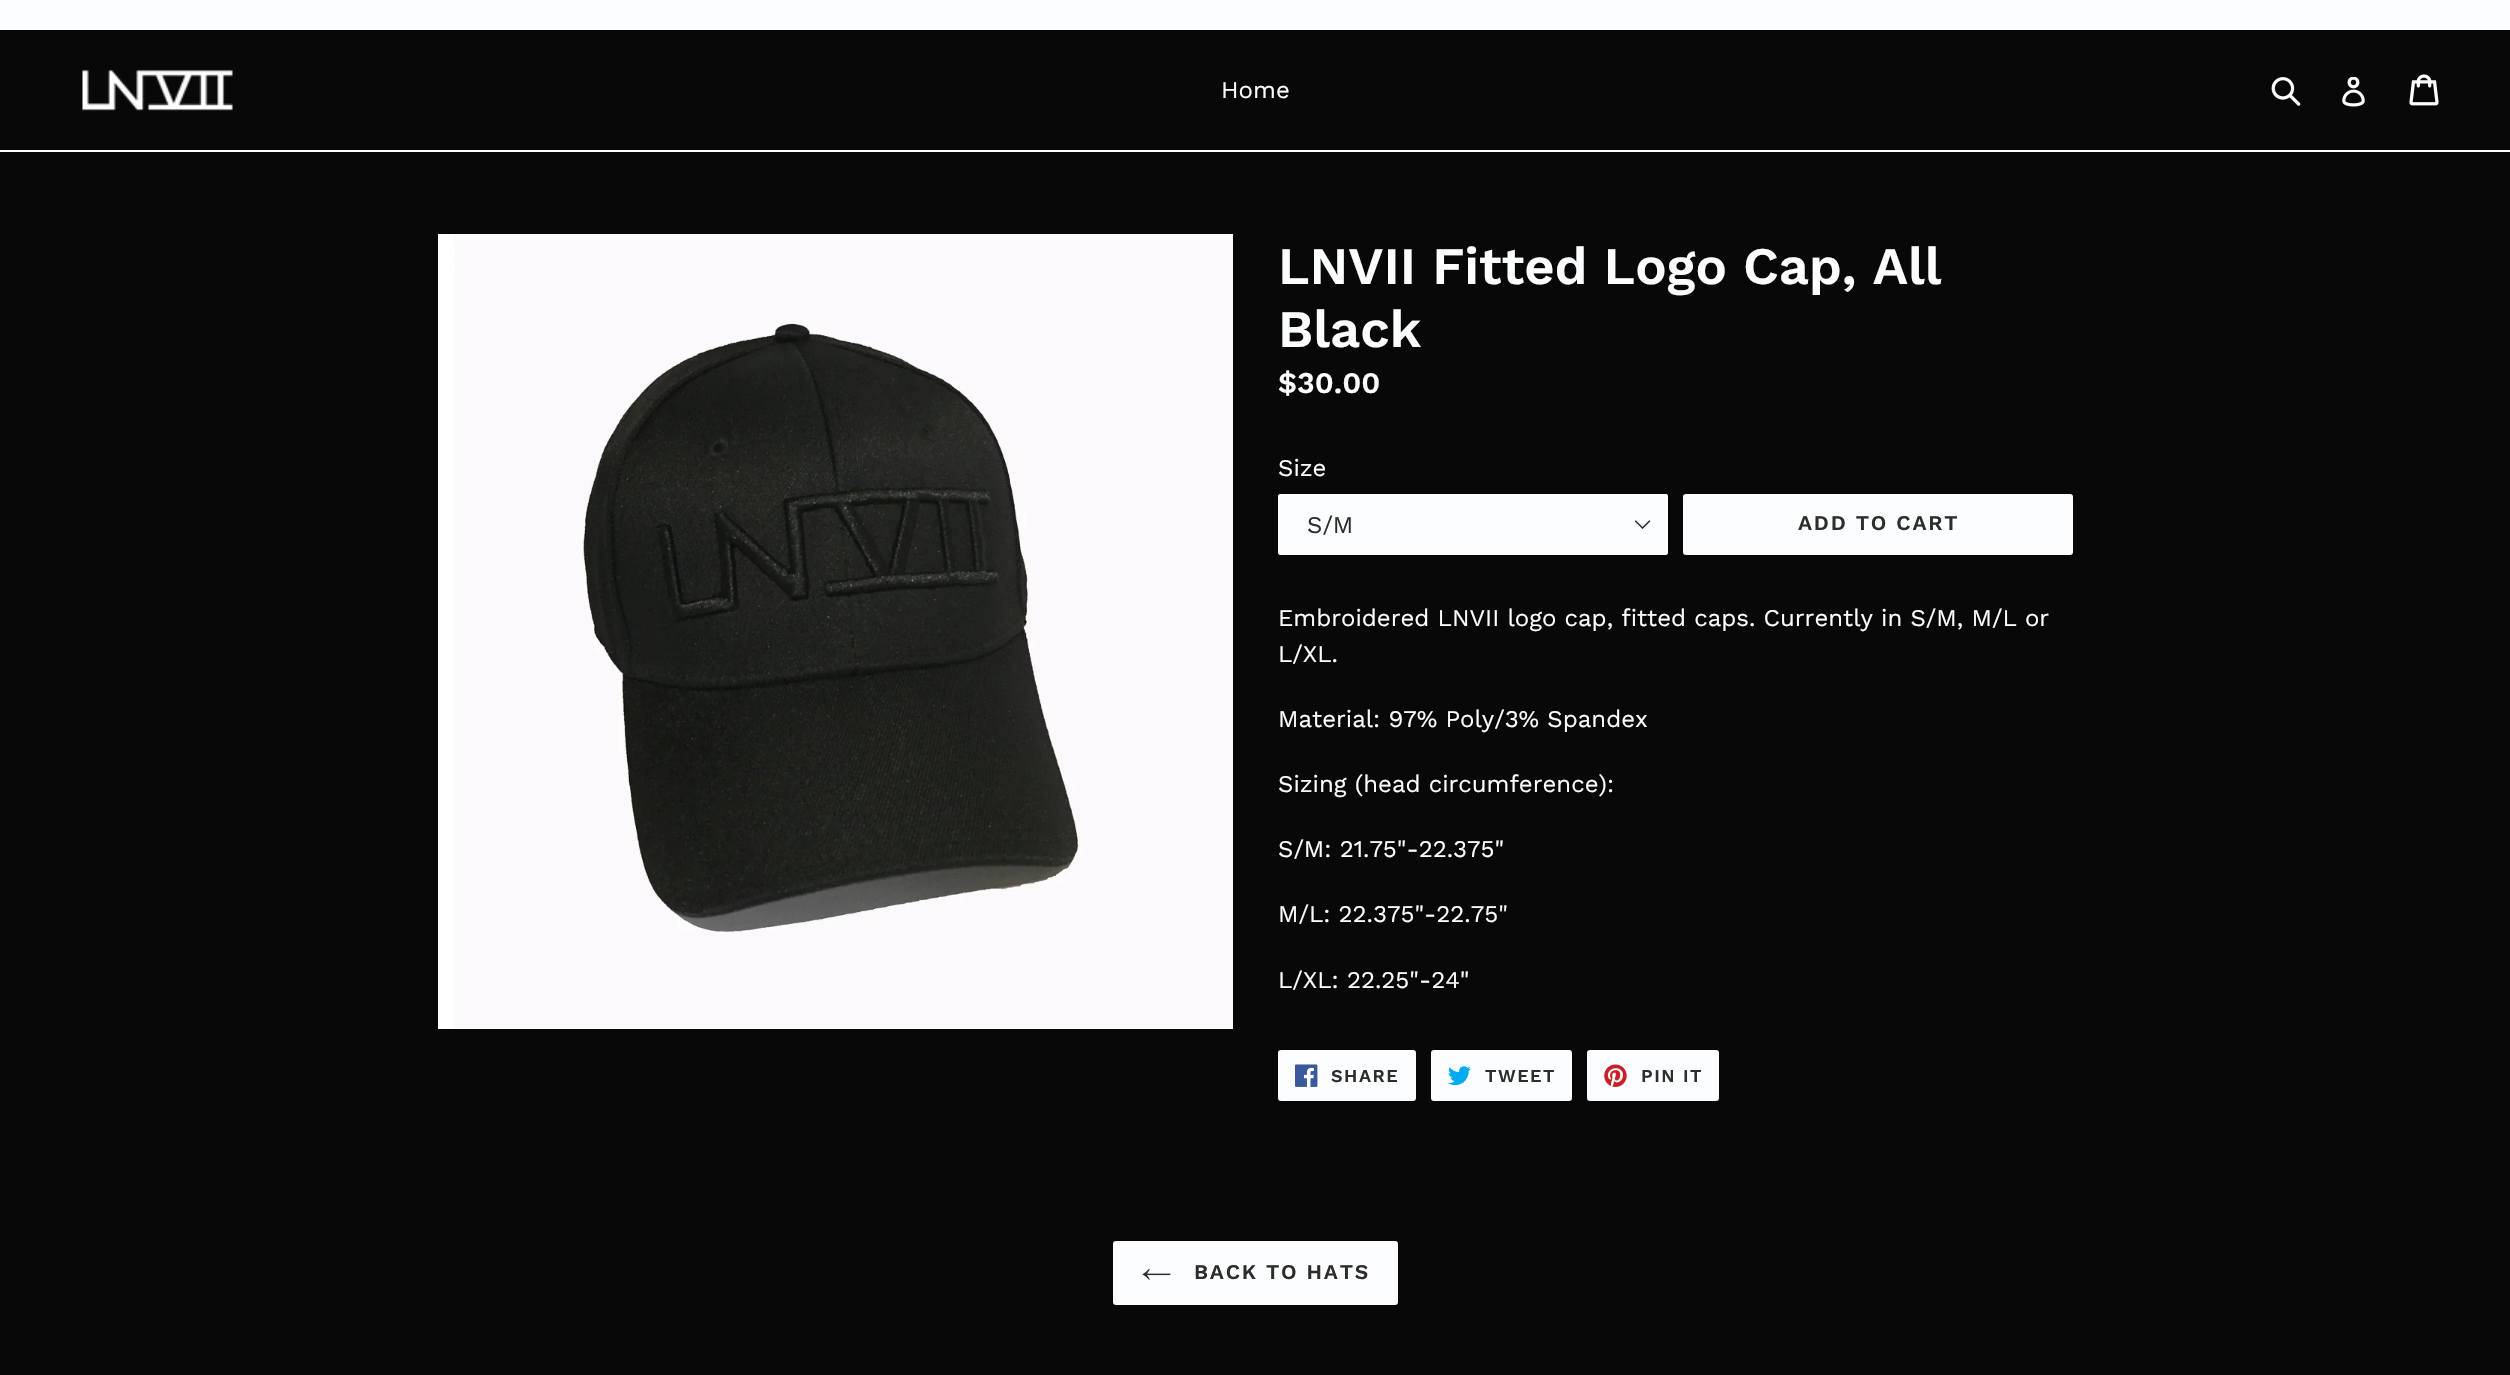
#include "include/core/SkBlurTypes.h"
#include "include/core/SkCanvas.h"
#include "include/core/SkData.h"
#include "include/core/SkFont.h"
#include "include/core/SkFontMgr.h"
#include "include/core/SkImage.h"
#include "include/core/SkMaskFilter.h"
#include "include/core/SkPaint.h"
#include "include/core/SkPathBuilder.h"
#include "include/core/SkTextBlob.h"
#include "include/effects/SkDashPathEffect.h"
#include "include/effects/SkGradientShader.h"
#include "include/utils/SkParsePath.h"

extern sk_sp<SkFontMgr> fontMgr;

static SkFont font(const char* family, int weight, float size, bool italic = false) {
    SkFontStyle style(weight, SkFontStyle::kNormal_Width,
        italic ? SkFontStyle::kItalic_Slant : SkFontStyle::kUpright_Slant);
    SkFont result(fontMgr->matchFamilyStyle(family, style), size);
    result.setSubpixel(true);
    return result;
}

static void drawLabel(SkCanvas* canvas, const char* s, float x, float y, const SkFont& font, SkColor color) {
    SkPaint ink(SkColor4f::FromColor(color));
    ink.setAntiAlias(true);
    canvas->drawString(s, x, y, font, ink);
}

static void drawTracked(SkCanvas* canvas, const char* s, float x, float y, const SkFont& font, const SkPaint& ink, float letter, float word) {
    std::vector<SkGlyphID> glyphs(font.countText(s, strlen(s), SkTextEncoding::kUTF8));
    std::vector<float> xs(glyphs.size());
    font.textToGlyphs(s, strlen(s), SkTextEncoding::kUTF8, glyphs);
    font.getXPos(glyphs, xs, x);
    float extra = 0;
    for (size_t i = 0; i < glyphs.size(); i++) {
        xs[i] += extra;
        extra += letter + word * (glyphs[i] == font.unicharToGlyph(' '));
    }
    canvas->drawTextBlob(SkTextBlob::MakeFromPosHGlyphs(glyphs, xs, y, font), 0, 0, ink);
}

static void fillRect(SkCanvas* canvas, float x, float y, float w, float h, SkColor color) {
    SkPaint ink(SkColor4f::FromColor(color));
    ink.setAntiAlias(true);
    canvas->drawRect(SkRect::MakeXYWH(x, y, w, h), ink);
}

static void fillRRect(SkCanvas* canvas, float x, float y, float w, float h, float radius, SkColor color) {
    SkPaint ink(SkColor4f::FromColor(color));
    ink.setAntiAlias(true);
    canvas->drawRoundRect(SkRect::MakeXYWH(x, y, w, h), radius, radius, ink);
}

static void drawPhoto(SkCanvas* canvas, const char* path, float x, float y, float w, float h) {
    auto image = SkImages::DeferredFromEncodedData(SkData::MakeFromFileName(path));
    canvas->drawImageRect(image, SkRect::MakeXYWH(x, y, w, h), SkSamplingOptions());
}

void draw(SkCanvas* canvas) {
    SkPaint paint;
    paint.setAntiAlias(true);
    canvas->clear(0xFF080808);
    fillRect(canvas, 0, 0, 2510, 30, 0xFFFCFDFF);
    fillRect(canvas, 0, 150, 2510, 2, 0xFFFCFDFF);
    drawPhoto(canvas, "assets/img1.png", 82, 69, 151, 42);
    SkFont font1 = font("Work Sans", 400, 24);
    drawLabel(canvas, "Home", 1221, 98, font1, 0xFFFCFDFF);
    drawPhoto(canvas, "assets/img2.png", 2271, 77, 30, 29);
    drawPhoto(canvas, "assets/img3.png", 2342, 77, 23, 30);
    drawPhoto(canvas, "assets/img4.png", 2409, 74, 30, 32);
    drawPhoto(canvas, "assets/img5.png", 438, 234, 795, 795);
    SkFont font2 = font("Work Sans", 600, 52.5f);
    drawLabel(canvas, "LNVII Fitted Logo Cap, All", 1278, 284, font2, 0xFFFCFDFF);
    drawLabel(canvas, "Black", 1278, 347, font2, 0xFFFCFDFF);
    SkFont font3 = font("Work Sans", 600, 30);
    drawLabel(canvas, "$30.00", 1278, 393, font3, 0xFFFCFDFF);
    drawLabel(canvas, "Size", 1278, 476, font1, 0xFFFCFDFF);
    fillRRect(canvas, 1278, 494, 390, 61, 3, 0xFFFCFDFF);
    drawPhoto(canvas, "assets/img6.png", 1634, 520, 17, 9);
    paint.setStroke(true);
    paint.setStrokeWidth(2);
    paint.setColor(0xFFFCFDFF);
    canvas->drawRoundRect(SkRect::MakeXYWH(1279, 495, 388, 59), 2, 2, paint);
    drawLabel(canvas, "S/M", 1307, 533, font1, 0xFF2D2D2D);
    fillRRect(canvas, 1683, 494, 390, 61, 3, 0xFFFCFDFF);
    SkFont font4 = font("Work Sans", 600, 21);
    paint.setStroke(false);
    paint.setColor(0xFF2D2D2D);
    drawTracked(canvas, "ADD TO CART", 1798, 530, font4, paint, 1.75f, 0);
    drawLabel(canvas, "Embroidered LNVII logo cap, fitted caps. Currently in S/M, M/L or", 1278, 626, font1, 0xFFFCFDFF);
    drawLabel(canvas, "L/XL.", 1278, 662, font1, 0xFFFCFDFF);
    drawLabel(canvas, "Material: 97% Poly/3% Spandex", 1278, 727, font1, 0xFFFCFDFF);
    drawLabel(canvas, "Sizing (head circumference):", 1278, 792, font1, 0xFFFCFDFF);
    drawLabel(canvas, "S/M: 21.75\"-22.375\"", 1278, 857, font1, 0xFFFCFDFF);
    drawLabel(canvas, "M/L: 22.375\"-22.75\"", 1278, 922, font1, 0xFFFCFDFF);
    drawLabel(canvas, "L/XL: 22.25\"-24\"", 1278, 988, font1, 0xFFFCFDFF);
    paint.setColor(0xFFFCFDFF);
    canvas->drawRoundRect(SkRect::MakeXYWH(1279, 1051, 136, 49), 2, 2, paint);
    paint.setStroke(true);
    canvas->drawRoundRect(SkRect::MakeXYWH(1279, 1051, 136, 49), 2, 2, paint);
    drawPhoto(canvas, "assets/img7.png", 1295, 1064, 23, 23);
    SkFont font5 = font("Work Sans", 600, 18);
    paint.setStroke(false);
    paint.setColor(0xFF2D2D2D);
    drawTracked(canvas, "SHARE", 1331, 1082, font5, paint, 1.5f, 0);
    paint.setColor(0xFFFCFDFF);
    canvas->drawRoundRect(SkRect::MakeXYWH(1432, 1051, 139, 49), 2, 2, paint);
    paint.setStroke(true);
    canvas->drawRoundRect(SkRect::MakeXYWH(1432, 1051, 139, 49), 2, 2, paint);
    drawPhoto(canvas, "assets/img8.png", 1448, 1066, 23, 20);
    paint.setStroke(false);
    paint.setColor(0xFF2D2D2D);
    drawTracked(canvas, "TWEET", 1485, 1082, font5, paint, 1.5f, 0);
    paint.setColor(0xFFFCFDFF);
    canvas->drawRoundRect(SkRect::MakeXYWH(1588, 1051, 130, 49), 2, 2, paint);
    paint.setStroke(true);
    canvas->drawRoundRect(SkRect::MakeXYWH(1588, 1051, 130, 49), 2, 2, paint);
    drawPhoto(canvas, "assets/img9.png", 1604, 1064, 23, 23);
    paint.setStroke(false);
    paint.setColor(0xFF2D2D2D);
    drawTracked(canvas, "PIN IT", 1641, 1082, font5, paint, 1.5f, 0);
    paint.setColor(0xFFFCFDFF);
    canvas->drawRoundRect(SkRect::MakeXYWH(1114, 1242, 283, 62), 2, 2, paint);
    paint.setStroke(true);
    canvas->drawRoundRect(SkRect::MakeXYWH(1114, 1242, 283, 62), 2, 2, paint);
    drawPhoto(canvas, "assets/img10.png", 1142, 1269, 29, 11);
    paint.setStroke(false);
    paint.setColor(0xFF2D2D2D);
    drawTracked(canvas, "BACK TO HATS", 1194, 1279, font4, paint, 1.75f, 0);
}
